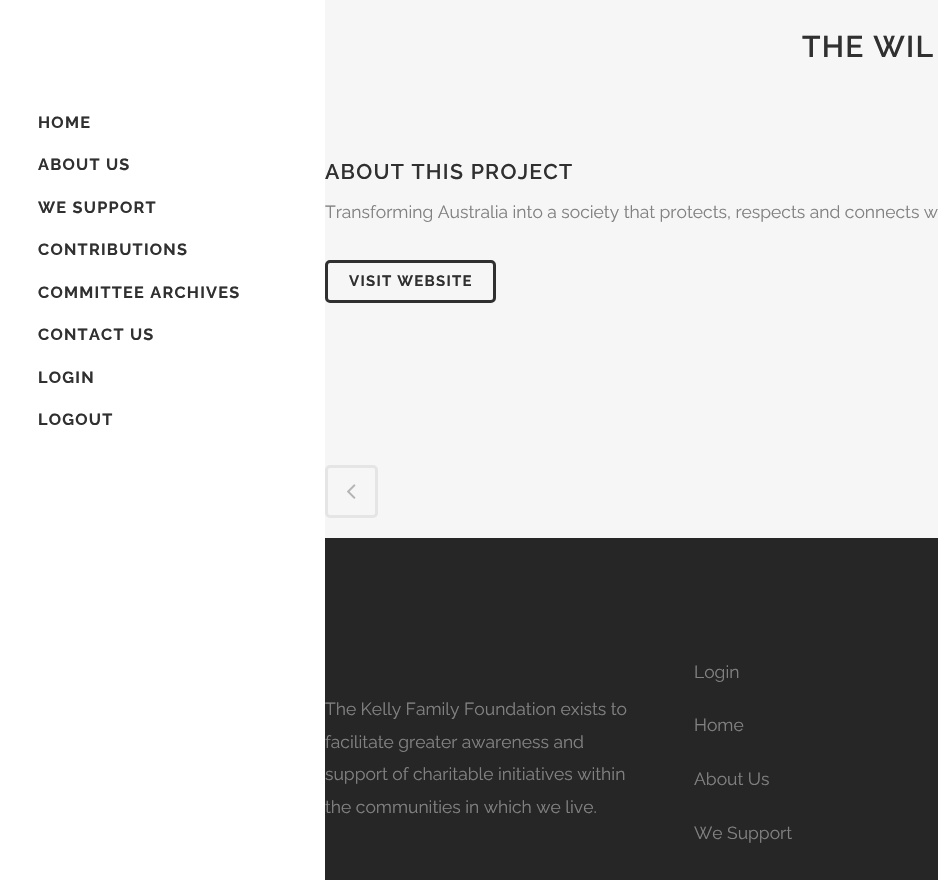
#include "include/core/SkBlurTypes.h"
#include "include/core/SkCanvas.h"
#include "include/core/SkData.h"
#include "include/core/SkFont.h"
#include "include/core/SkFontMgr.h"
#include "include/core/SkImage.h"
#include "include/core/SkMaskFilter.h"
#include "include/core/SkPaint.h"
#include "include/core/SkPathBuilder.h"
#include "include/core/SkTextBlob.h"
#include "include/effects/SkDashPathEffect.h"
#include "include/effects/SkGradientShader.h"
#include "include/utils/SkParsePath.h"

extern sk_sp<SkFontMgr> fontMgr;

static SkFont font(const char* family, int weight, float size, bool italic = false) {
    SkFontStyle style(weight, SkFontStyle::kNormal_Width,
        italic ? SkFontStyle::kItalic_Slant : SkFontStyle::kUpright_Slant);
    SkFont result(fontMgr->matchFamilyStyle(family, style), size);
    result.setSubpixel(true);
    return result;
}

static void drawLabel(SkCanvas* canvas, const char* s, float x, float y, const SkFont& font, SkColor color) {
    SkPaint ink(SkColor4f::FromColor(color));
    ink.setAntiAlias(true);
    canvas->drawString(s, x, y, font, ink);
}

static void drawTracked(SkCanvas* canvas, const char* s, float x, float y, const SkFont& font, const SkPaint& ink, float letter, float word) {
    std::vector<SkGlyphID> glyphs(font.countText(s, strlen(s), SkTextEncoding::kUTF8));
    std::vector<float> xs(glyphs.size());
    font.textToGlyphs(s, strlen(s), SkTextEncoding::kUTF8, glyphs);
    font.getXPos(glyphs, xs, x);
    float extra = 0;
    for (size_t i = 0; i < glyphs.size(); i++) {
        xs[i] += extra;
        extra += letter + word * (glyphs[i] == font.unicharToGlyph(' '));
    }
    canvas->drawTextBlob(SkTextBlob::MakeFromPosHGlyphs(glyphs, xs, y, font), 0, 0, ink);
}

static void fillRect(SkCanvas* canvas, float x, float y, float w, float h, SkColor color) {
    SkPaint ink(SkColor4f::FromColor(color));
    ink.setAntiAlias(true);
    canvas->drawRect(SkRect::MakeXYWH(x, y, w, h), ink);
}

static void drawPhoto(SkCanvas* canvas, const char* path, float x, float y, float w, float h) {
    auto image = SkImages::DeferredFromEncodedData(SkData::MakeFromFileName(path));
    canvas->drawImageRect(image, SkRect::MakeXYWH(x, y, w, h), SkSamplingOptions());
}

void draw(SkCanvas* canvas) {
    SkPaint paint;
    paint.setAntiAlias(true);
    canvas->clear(0xFFF6F6F6);
    fillRect(canvas, 0, 0, 325, 880, 0xFFFFFFFF);
    SkFont font1 = font("Raleway", 700, 16.25f);
    paint.setColor(0xFF303030);
    drawTracked(canvas, "HOME", 38, 128, font1, paint, 1.25f, 0);
    drawTracked(canvas, "ABOUT US", 38, 170, font1, paint, 1.25f, 0);
    drawTracked(canvas, "WE SUPPORT", 38, 213, font1, paint, 1.25f, 0);
    drawTracked(canvas, "CONTRIBUTIONS", 38, 255, font1, paint, 1.25f, 0);
    drawTracked(canvas, "COMMITTEE ARCHIVES", 38, 298, font1, paint, 1.25f, 0);
    drawTracked(canvas, "CONTACT US", 38, 340, font1, paint, 1.25f, 0);
    drawTracked(canvas, "LOGIN", 38, 383, font1, paint, 1.25f, 0);
    drawTracked(canvas, "LOGOUT", 38, 425, font1, paint, 1.25f, 0);
    SkFont font2 = font("Raleway", 600, 30);
    drawTracked(canvas, "THE WIL", 802, 57, font2, paint, 1.25f, 0);
    SkFont font3 = font("Raleway", 600, 21.25f);
    drawTracked(canvas, "ABOUT THIS PROJECT", 325, 179, font3, paint, 1.25f, 0);
    SkFont font4 = font("Raleway", 400, 17.5f);
    drawLabel(canvas, "Transforming Australia into a society that protects, respects and connects w", 325, 218, font4, 0xFF818181);
    paint.setStroke(true);
    paint.setStrokeWidth(3);
    canvas->drawRoundRect(SkRect::MakeXYWH(326.5f, 261.5f, 168, 40), 3.5f, 3.5f, paint);
    SkFont font5 = font("Raleway", 700, 15);
    paint.setStroke(false);
    drawTracked(canvas, "VISIT WEBSITE", 349, 286, font5, paint, 1.25f, 0);
    paint.setStroke(true);
    paint.setColor(0xFFE5E5E5);
    canvas->drawRoundRect(SkRect::MakeXYWH(326.5f, 466.5f, 50, 50), 3.5f, 3.5f, paint);
    drawPhoto(canvas, "assets/img1.png", 347, 484, 9, 15);
    fillRect(canvas, 325, 538, 613, 342, 0xFF262626);
    drawLabel(canvas, "The Kelly Family Foundation exists to", 325, 715, font4, 0xFF818181);
    drawLabel(canvas, "facilitate greater awareness and", 325, 748, font4, 0xFF818181);
    drawLabel(canvas, "support of charitable initiatives within", 325, 780, font4, 0xFF818181);
    drawLabel(canvas, "the communities in which we live.", 325, 813, font4, 0xFF818181);
    drawLabel(canvas, "Login", 694, 678, font4, 0xFF818181);
    drawLabel(canvas, "Home", 694, 731, font4, 0xFF818181);
    drawLabel(canvas, "About Us", 694, 785, font4, 0xFF818181);
    drawLabel(canvas, "We Support", 694, 839, font4, 0xFF818181);
}
